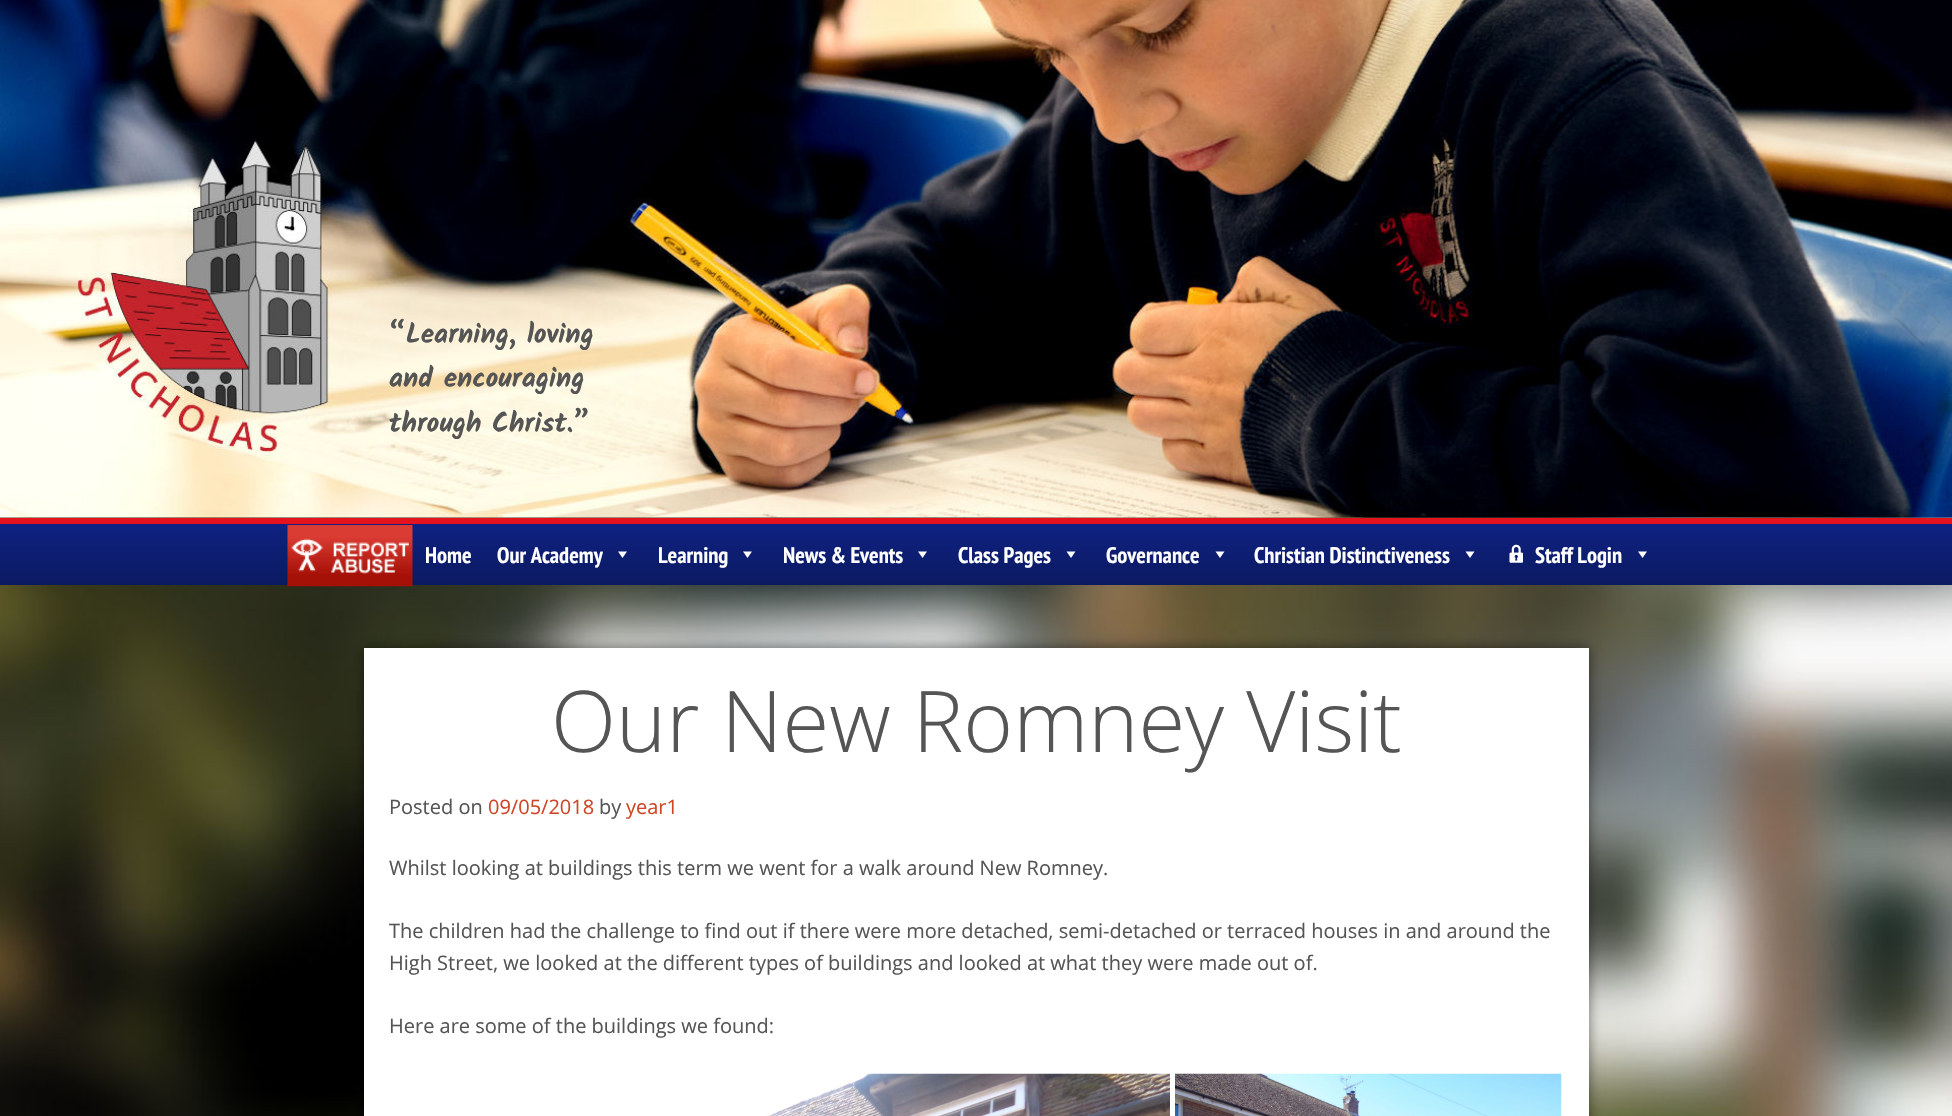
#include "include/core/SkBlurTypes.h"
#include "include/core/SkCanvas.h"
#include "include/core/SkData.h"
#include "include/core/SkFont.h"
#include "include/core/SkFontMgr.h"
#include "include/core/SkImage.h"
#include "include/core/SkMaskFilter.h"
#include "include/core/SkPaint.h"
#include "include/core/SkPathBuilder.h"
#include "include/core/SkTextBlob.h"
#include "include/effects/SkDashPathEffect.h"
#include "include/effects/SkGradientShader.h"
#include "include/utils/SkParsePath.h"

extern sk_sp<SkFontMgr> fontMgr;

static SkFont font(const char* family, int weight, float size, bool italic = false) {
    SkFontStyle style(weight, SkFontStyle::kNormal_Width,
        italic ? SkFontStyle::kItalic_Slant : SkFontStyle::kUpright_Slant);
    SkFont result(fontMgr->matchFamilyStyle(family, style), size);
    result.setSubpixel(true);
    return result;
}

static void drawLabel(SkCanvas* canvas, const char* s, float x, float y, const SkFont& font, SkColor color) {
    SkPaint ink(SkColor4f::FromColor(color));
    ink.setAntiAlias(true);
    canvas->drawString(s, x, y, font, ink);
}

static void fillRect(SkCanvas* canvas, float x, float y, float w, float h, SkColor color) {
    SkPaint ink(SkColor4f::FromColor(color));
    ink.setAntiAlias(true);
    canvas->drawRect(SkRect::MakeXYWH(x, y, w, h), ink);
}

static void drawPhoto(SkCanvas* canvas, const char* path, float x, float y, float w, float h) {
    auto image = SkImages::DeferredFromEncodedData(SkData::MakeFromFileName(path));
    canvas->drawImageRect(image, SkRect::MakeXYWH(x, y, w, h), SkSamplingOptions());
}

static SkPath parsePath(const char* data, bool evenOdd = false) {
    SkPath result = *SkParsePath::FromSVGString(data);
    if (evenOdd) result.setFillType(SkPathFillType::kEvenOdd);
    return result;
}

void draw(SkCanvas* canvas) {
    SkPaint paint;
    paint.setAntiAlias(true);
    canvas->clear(0xFFFFFFFF);
    drawPhoto(canvas, "assets/img1.png", 0, 517, 1952, 599);
    fillRect(canvas, 0, 518, 1952, 6, 0xFFE5131D);
    drawPhoto(canvas, "assets/img2.png", 0, 0, 1952, 518);
    SkFont font1 = font("Kalam", 700, 27.5f);
    drawLabel(canvas, "“Learning, loving", 389, 343, font1, 0xFF555555);
    drawLabel(canvas, "and encouraging", 389, 387, font1, 0xFF555555);
    drawLabel(canvas, "through Christ.”", 389, 432, font1, 0xFF555555);
    {
        const SkColor colors[] = {0xFF0F2183, 0xFF0B1A60};
        const float stops[] = {0, 1};
        const SkPoint ends[] = {{976, 524}, {976, 585}};
        paint.setShader(SkGradientShader::MakeLinear(ends, colors, stops, 2, SkTileMode::kClamp));
        paint.setAlpha(255);
    }
    canvas->drawRect(SkRect::MakeXYWH(0, 524, 1952, 61), paint);
    drawPhoto(canvas, "assets/img3.png", 287, 525, 126, 62);
    SkFont font2 = font("PT Sans Narrow", 700, 22.5f);
    drawLabel(canvas, "Home", 425, 563, font2, 0xFFFFFFFF);
    drawLabel(canvas, "Our Academy", 497, 563, font2, 0xFFFFFFFF);
    paint.setShader(nullptr);
    paint.setColor(0xFFFFFFFF);
    canvas->drawPath(parsePath("M627 551.5L622.5 558L618 551.5Z"), paint);
    drawLabel(canvas, "Learning", 658, 563, font2, 0xFFFFFFFF);
    canvas->drawPath(parsePath("M752 551.5L747.5 558L743 551.5Z"), paint);
    drawLabel(canvas, "News & Events", 783, 563, font2, 0xFFFFFFFF);
    canvas->drawPath(parsePath("M927 551.5L922.5 558L918 551.5Z"), paint);
    drawLabel(canvas, "Class Pages", 958, 563, font2, 0xFFFFFFFF);
    canvas->drawPath(parsePath("M1075.5 551.5L1071 558L1066.5 551.5Z"), paint);
    drawLabel(canvas, "Governance", 1106, 563, font2, 0xFFFFFFFF);
    canvas->drawPath(parsePath("M1224.5 551.5L1220 558L1215.5 551.5Z"), paint);
    drawLabel(canvas, "Christian Distinctiveness", 1254, 563, font2, 0xFFFFFFFF);
    canvas->drawPath(parsePath("M1474.5 551.5L1470 558L1465.5 551.5Z"), paint);
    drawPhoto(canvas, "assets/img4.png", 1509, 544, 14, 19);
    drawLabel(canvas, "Staff Login", 1535, 563, font2, 0xFFFFFFFF);
    canvas->drawPath(parsePath("M1647 551.5L1642.5 558L1638 551.5Z"), paint);
    paint.setColor(0x80000000);
    paint.setMaskFilter(SkMaskFilter::MakeBlur(kNormal_SkBlurStyle, 6));
    canvas->drawRect(SkRect::MakeXYWH(364, 648, 1225, 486), paint);
    paint.setMaskFilter(nullptr);
    fillRect(canvas, 364, 648, 1225, 468, 0xFFFFFFFF);
    SkFont font3 = font("Open Sans", 300, 85);
    drawLabel(canvas, "Our New Romney Visit", 551, 752, font3, 0xFF555555);
    SkFont font4 = font("Open Sans", 400, 20);
    drawLabel(canvas, "Posted on", 389, 814, font4, 0xFF555555);
    drawLabel(canvas, "09/05/2018", 488, 814, font4, 0xFFD04526);
    drawLabel(canvas, "by", 599, 814, font4, 0xFF555555);
    drawLabel(canvas, "year1", 626, 814, font4, 0xFFD04526);
    drawLabel(canvas, "Whilst looking at buildings this term we went for a walk around New Romney.", 389, 875, font4, 0xFF555555);
    drawLabel(canvas, "The children had the challenge to find out if there were more detached, semi-detached or terraced houses in and around the", 389, 938, font4, 0xFF555555);
    drawLabel(canvas, "High Street, we looked at the different types of buildings and looked at what they were made out of.", 389, 970, font4, 0xFF555555);
    drawLabel(canvas, "Here are some of the buildings we found:", 389, 1033, font4, 0xFF555555);
    drawPhoto(canvas, "assets/img5.png", 766, 1073, 404, 43);
    drawPhoto(canvas, "assets/img6.png", 1175, 1073, 387, 43);
}
